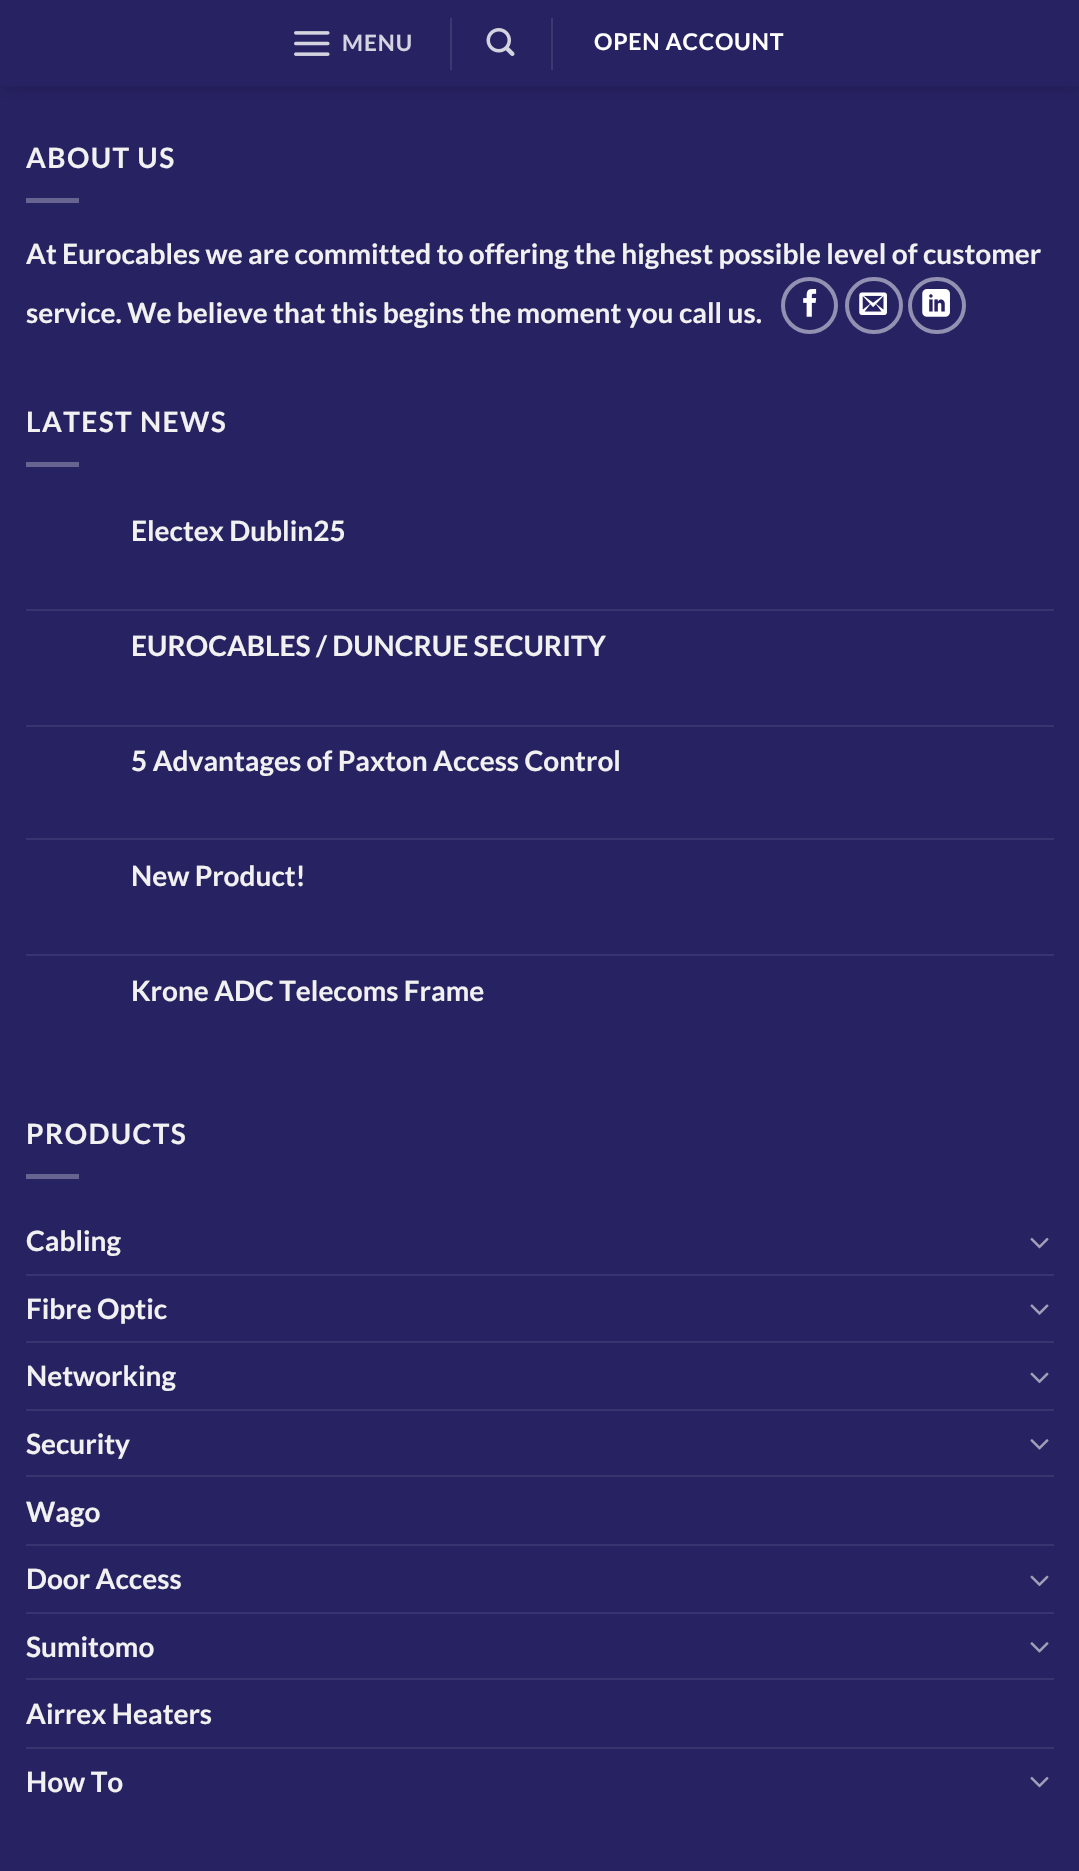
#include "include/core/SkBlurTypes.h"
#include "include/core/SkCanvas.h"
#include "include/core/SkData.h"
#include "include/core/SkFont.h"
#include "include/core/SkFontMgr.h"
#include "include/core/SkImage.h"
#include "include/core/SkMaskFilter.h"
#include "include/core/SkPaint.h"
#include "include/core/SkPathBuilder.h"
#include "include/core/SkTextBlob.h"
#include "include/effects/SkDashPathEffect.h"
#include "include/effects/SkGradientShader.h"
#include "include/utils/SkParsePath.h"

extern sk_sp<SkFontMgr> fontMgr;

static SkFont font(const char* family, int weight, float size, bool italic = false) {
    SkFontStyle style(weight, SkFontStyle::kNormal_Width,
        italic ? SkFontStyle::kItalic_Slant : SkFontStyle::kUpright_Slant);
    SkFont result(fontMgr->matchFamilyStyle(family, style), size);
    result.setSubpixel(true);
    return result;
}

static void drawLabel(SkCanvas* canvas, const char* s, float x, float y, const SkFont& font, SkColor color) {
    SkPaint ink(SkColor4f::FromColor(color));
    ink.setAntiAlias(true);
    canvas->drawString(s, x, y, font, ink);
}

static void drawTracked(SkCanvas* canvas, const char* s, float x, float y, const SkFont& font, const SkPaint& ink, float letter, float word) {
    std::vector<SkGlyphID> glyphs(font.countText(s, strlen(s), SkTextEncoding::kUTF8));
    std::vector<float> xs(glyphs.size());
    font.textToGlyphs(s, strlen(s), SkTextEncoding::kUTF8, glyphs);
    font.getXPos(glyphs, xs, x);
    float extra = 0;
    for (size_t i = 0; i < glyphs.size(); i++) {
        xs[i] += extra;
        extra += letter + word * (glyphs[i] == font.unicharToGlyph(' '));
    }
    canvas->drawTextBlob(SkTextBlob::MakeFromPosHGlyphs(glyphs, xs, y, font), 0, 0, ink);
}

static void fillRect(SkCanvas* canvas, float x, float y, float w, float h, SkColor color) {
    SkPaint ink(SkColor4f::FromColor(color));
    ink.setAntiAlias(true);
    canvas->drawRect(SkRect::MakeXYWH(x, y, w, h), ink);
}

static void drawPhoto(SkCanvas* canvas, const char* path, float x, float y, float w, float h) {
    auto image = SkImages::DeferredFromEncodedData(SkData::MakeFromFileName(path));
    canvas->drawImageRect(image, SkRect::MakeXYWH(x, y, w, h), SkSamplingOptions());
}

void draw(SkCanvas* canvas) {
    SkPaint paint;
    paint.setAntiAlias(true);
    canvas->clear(0xFF272262);
    paint.setColor(0x26000000);
    paint.setMaskFilter(SkMaskFilter::MakeBlur(kNormal_SkBlurStyle, 9));
    canvas->drawRect(SkRect::MakeXYWH(2, 2, 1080, 86), paint);
    paint.setMaskFilter(nullptr);
    fillRect(canvas, 0, 0, 1079, 86, 0xFF272262);
    drawPhoto(canvas, "assets/img1.png", 294, 31, 36, 25);
    SkFont font1 = font("Lato", 700, 22.5f);
    paint.setColor(0xFFD4D3E0);
    drawTracked(canvas, "MENU", 342, 51, font1, paint, 1, 0);
    fillRect(canvas, 450, 18, 2, 52, 0xFF3D3872);
    drawPhoto(canvas, "assets/img2.png", 486, 28, 29, 28);
    fillRect(canvas, 551, 18, 2, 52, 0xFF3D3872);
    SkFont font2 = font("Lato", 700, 23);
    paint.setColor(0xFFFFFFFF);
    drawTracked(canvas, "OPEN ACCOUNT", 594, 50, font2, paint, 0.75f, 0);
    SkFont font3 = font("Lato", 700, 28);
    paint.setColor(0xFFF1F1F1);
    drawTracked(canvas, "ABOUT US", 26, 168, font3, paint, 1.4f, 0);
    fillRect(canvas, 26, 198, 53, 5, 0xFF686491);
    drawLabel(canvas, "At Eurocables we are committed to offering the highest possible level of customer", 26, 264, font3, 0xFFF1F1F1);
    drawLabel(canvas, "service. We believe that this begins the moment you call us.", 26, 323, font3, 0xFFF1F1F1);
    paint.setStroke(true);
    paint.setStrokeWidth(4);
    paint.setColor(0xFF9391B1);
    canvas->drawCircle(809.5f, 305.5f, 26.5f, paint);
    drawPhoto(canvas, "assets/img3.png", 803, 289, 14, 28);
    canvas->drawRoundRect(SkRect::MakeXYWH(847, 279, 54, 53), 26.5f, 26.5f, paint);
    drawPhoto(canvas, "assets/img4.png", 859, 292, 28, 23);
    canvas->drawRoundRect(SkRect::MakeXYWH(910, 279, 54, 53), 26.5f, 26.5f, paint);
    drawPhoto(canvas, "assets/img5.png", 922, 289, 28, 28);
    paint.setStroke(false);
    paint.setColor(0xFFF1F1F1);
    drawTracked(canvas, "LATEST NEWS", 26, 432, font3, paint, 1.4f, 0);
    fillRect(canvas, 26, 462, 53, 5, 0xFF686491);
    drawLabel(canvas, "Electex Dublin25", 131, 541, font3, 0xFFF1F1F1);
    fillRect(canvas, 26, 609, 1028, 2, 0xFF38346F);
    drawLabel(canvas, "EUROCABLES / DUNCRUE SECURITY", 131, 656, font3, 0xFFF1F1F1);
    fillRect(canvas, 26, 725, 1028, 2, 0xFF38346F);
    drawLabel(canvas, "5 Advantages of Paxton Access Control", 131, 771, font3, 0xFFF1F1F1);
    fillRect(canvas, 26, 838, 1028, 2, 0xFF38346F);
    drawLabel(canvas, "New Product!", 131, 886, font3, 0xFFF1F1F1);
    fillRect(canvas, 26, 954, 1028, 2, 0xFF38346F);
    drawLabel(canvas, "Krone ADC Telecoms Frame", 131, 1001, font3, 0xFFF1F1F1);
    drawTracked(canvas, "PRODUCTS", 26, 1144, font3, paint, 1.4f, 0);
    fillRect(canvas, 26, 1174, 53, 5, 0xFF686491);
    drawLabel(canvas, "Cabling", 26, 1251, font3, 0xFFF1F1F1);
    drawPhoto(canvas, "assets/img6.png", 1030, 1237, 19, 12);
    fillRect(canvas, 26, 1274, 1028, 2, 0xFF38346F);
    drawLabel(canvas, "Fibre Optic", 26, 1319, font3, 0xFFF1F1F1);
    drawPhoto(canvas, "assets/img7.png", 1030, 1304, 19, 11);
    fillRect(canvas, 26, 1341, 1028, 2, 0xFF38346F);
    drawLabel(canvas, "Networking", 26, 1386, font3, 0xFFF1F1F1);
    drawPhoto(canvas, "assets/img8.png", 1030, 1372, 19, 12);
    fillRect(canvas, 26, 1409, 1028, 2, 0xFF38346F);
    drawLabel(canvas, "Security", 26, 1454, font3, 0xFFF1F1F1);
    drawPhoto(canvas, "assets/img9.png", 1030, 1439, 19, 11);
    fillRect(canvas, 26, 1475, 1028, 2, 0xFF38346F);
    drawLabel(canvas, "Wago", 26, 1522, font3, 0xFFF1F1F1);
    fillRect(canvas, 26, 1544, 1028, 2, 0xFF38346F);
    drawLabel(canvas, "Door Access", 26, 1589, font3, 0xFFF1F1F1);
    drawPhoto(canvas, "assets/img8.png", 1030, 1575, 19, 12);
    fillRect(canvas, 26, 1612, 1028, 2, 0xFF38346F);
    drawLabel(canvas, "Sumitomo", 26, 1657, font3, 0xFFF1F1F1);
    drawPhoto(canvas, "assets/img9.png", 1030, 1642, 19, 11);
    fillRect(canvas, 26, 1678, 1028, 2, 0xFF38346F);
    drawLabel(canvas, "Airrex Heaters", 26, 1724, font3, 0xFFF1F1F1);
    fillRect(canvas, 26, 1747, 1028, 2, 0xFF38346F);
    drawLabel(canvas, "How To", 26, 1792, font3, 0xFFF1F1F1);
    drawPhoto(canvas, "assets/img6.png", 1030, 1776, 19, 12);
}
